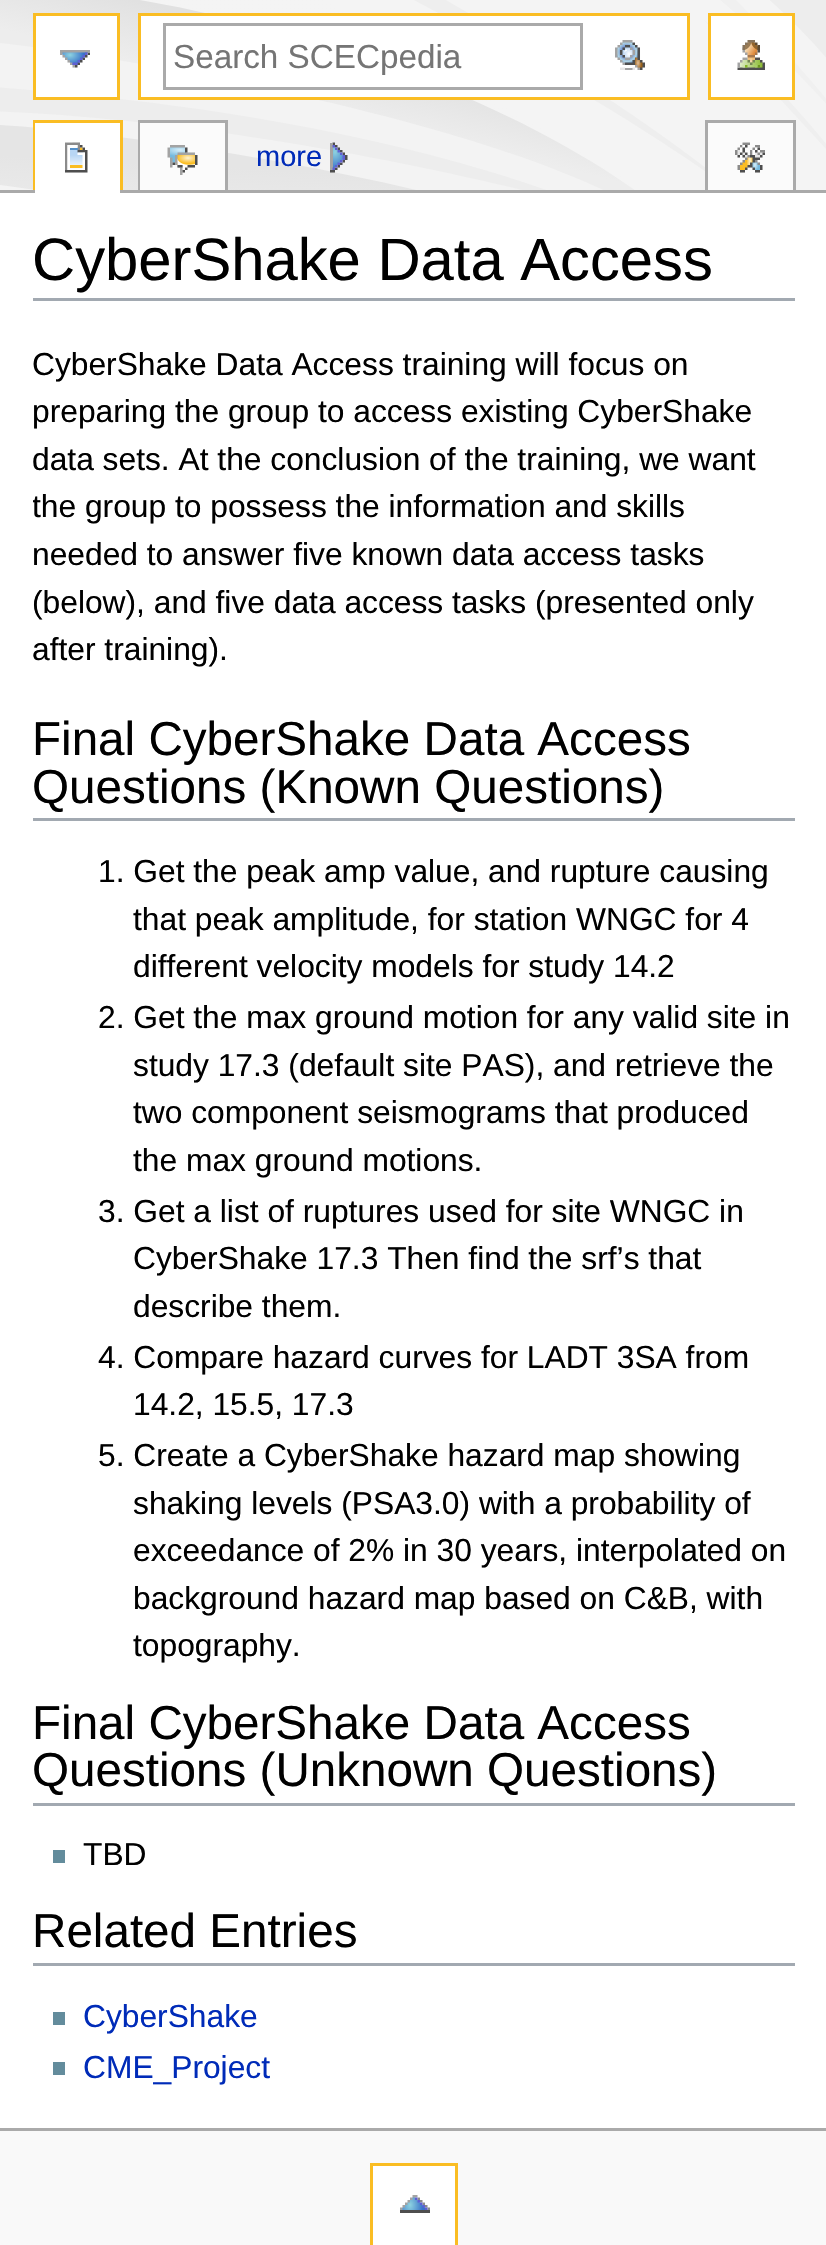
#include "include/core/SkBlurTypes.h"
#include "include/core/SkCanvas.h"
#include "include/core/SkData.h"
#include "include/core/SkFont.h"
#include "include/core/SkFontMgr.h"
#include "include/core/SkImage.h"
#include "include/core/SkMaskFilter.h"
#include "include/core/SkPaint.h"
#include "include/core/SkPathBuilder.h"
#include "include/core/SkTextBlob.h"
#include "include/effects/SkDashPathEffect.h"
#include "include/effects/SkGradientShader.h"
#include "include/utils/SkParsePath.h"

extern sk_sp<SkFontMgr> fontMgr;

static SkFont font(const char* family, int weight, float size, bool italic = false) {
    SkFontStyle style(weight, SkFontStyle::kNormal_Width,
        italic ? SkFontStyle::kItalic_Slant : SkFontStyle::kUpright_Slant);
    SkFont result(fontMgr->matchFamilyStyle(family, style), size);
    result.setSubpixel(true);
    return result;
}

static void drawLabel(SkCanvas* canvas, const char* s, float x, float y, const SkFont& font, SkColor color) {
    SkPaint ink(SkColor4f::FromColor(color));
    ink.setAntiAlias(true);
    canvas->drawString(s, x, y, font, ink);
}

static void fillRect(SkCanvas* canvas, float x, float y, float w, float h, SkColor color) {
    SkPaint ink(SkColor4f::FromColor(color));
    ink.setAntiAlias(true);
    canvas->drawRect(SkRect::MakeXYWH(x, y, w, h), ink);
}

static void drawPhoto(SkCanvas* canvas, const char* path, float x, float y, float w, float h) {
    auto image = SkImages::DeferredFromEncodedData(SkData::MakeFromFileName(path));
    canvas->drawImageRect(image, SkRect::MakeXYWH(x, y, w, h), SkSamplingOptions());
}

void draw(SkCanvas* canvas) {
    SkPaint paint;
    paint.setAntiAlias(true);
    canvas->clear(0xFFF9F9F9);
    drawPhoto(canvas, "assets/img1.png", 0, 0, 826, 190);
    fillRect(canvas, 36, 16, 81, 81, 0xFFFFFFFF);
    drawPhoto(canvas, "assets/img2.png", 60, 50, 30, 18);
    paint.setStroke(true);
    paint.setStrokeWidth(3);
    paint.setColor(0xFFFABD23);
    canvas->drawRect(SkRect::MakeXYWH(34.5f, 14.5f, 84, 84), paint);
    paint.setStroke(false);
    paint.setColor(0xFFFFFFFF);
    canvas->drawRect(SkRect::MakeXYWH(139.5f, 14.5f, 549, 84), paint);
    paint.setStroke(true);
    paint.setColor(0xFFFABD23);
    canvas->drawRect(SkRect::MakeXYWH(139.5f, 14.5f, 549, 84), paint);
    paint.setColor(0xFFAAAAAA);
    canvas->drawRect(SkRect::MakeXYWH(164.5f, 24.5f, 417, 64), paint);
    SkFont font1 = font("Liberation Sans", 400, 33.25f);
    drawLabel(canvas, "Search SCECpedia", 173, 68, font1, 0xFF757575);
    drawPhoto(canvas, "assets/img3.png", 615, 40, 30, 30);
    fillRect(canvas, 711, 16, 81, 81, 0xFFFFFFFF);
    drawPhoto(canvas, "assets/img4.png", 737, 40, 28, 30);
    paint.setColor(0xFFFABD23);
    canvas->drawRect(SkRect::MakeXYWH(709.5f, 14.5f, 84, 84), paint);
    fillRect(canvas, 33, 120, 90, 3, 0xFFFABD23);
    fillRect(canvas, 120, 120, 3, 73, 0xFFFABD23);
    fillRect(canvas, 33, 120, 3, 73, 0xFFFABD23);
    fillRect(canvas, 138, 120, 90, 3, 0xFFAAAAAA);
    fillRect(canvas, 225, 120, 3, 73, 0xFFAAAAAA);
    fillRect(canvas, 138, 120, 3, 73, 0xFFAAAAAA);
    fillRect(canvas, 705, 120, 90, 3, 0xFFAAAAAA);
    fillRect(canvas, 793, 120, 3, 73, 0xFFAAAAAA);
    fillRect(canvas, 705, 120, 3, 73, 0xFFAAAAAA);
    fillRect(canvas, 0, 190, 826, 3, 0xFFAAAAAA);
    fillRect(canvas, 35, 123, 85, 70, 0xFFFFFFFF);
    drawPhoto(canvas, "assets/img5.png", 65, 142, 23, 31);
    fillRect(canvas, 140, 123, 85, 67, 0xFFFBFBFB);
    drawPhoto(canvas, "assets/img6.png", 167, 145, 31, 30);
    drawPhoto(canvas, "assets/img7.png", 330, 142, 18, 31);
    SkFont font2 = font("Liberation Sans", 400, 29);
    drawLabel(canvas, "more", 256, 166, font2, 0xFF002BB8);
    fillRect(canvas, 708, 123, 85, 67, 0xFFFBFBFB);
    drawPhoto(canvas, "assets/img8.png", 735, 142, 30, 31);
    fillRect(canvas, 373, 2166, 82, 79, 0xFFFFFFFF);
    drawPhoto(canvas, "assets/img9.png", 400, 2195, 30, 18);
    canvas->drawRect(SkRect::MakeXYWH(371.5f, 2164.5f, 85, 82), paint);
    fillRect(canvas, 0, 193, 826, 1935, 0xFFFFFFFF);
    fillRect(canvas, 0, 2128, 826, 3, 0xFFAAAAAA);
    fillRect(canvas, 33, 298, 762, 3, 0xFFA2A9B1);
    SkFont font3 = font("Liberation Sans", 400, 59.75f);
    drawLabel(canvas, "CyberShake Data Access", 32, 280, font3, 0xFF000000);
    SkFont font4 = font("Liberation Sans", 400, 31.75f);
    drawLabel(canvas, "CyberShake Data Access training will focus on", 32, 375, font4, 0xFF000000);
    drawLabel(canvas, "preparing the group to access existing CyberShake", 32, 422, font4, 0xFF000000);
    drawLabel(canvas, "data sets. At the conclusion of the training, we want", 32, 470, font4, 0xFF000000);
    canvas->save();
    canvas->clipRect(SkRect::MakeXYWH(33, 305, 762, 1790));
    drawLabel(canvas, "the group to possess the information and skills", 32, 517, font4, 0xFF000000);
    canvas->restore();
    drawLabel(canvas, "needed to answer five known data access tasks", 32, 565, font4, 0xFF000000);
    drawLabel(canvas, "(below), and five data access tasks (presented only", 32, 613, font4, 0xFF000000);
    drawLabel(canvas, "after training).", 32, 660, font4, 0xFF000000);
    fillRect(canvas, 33, 818, 762, 3, 0xFFA2A9B1);
    SkFont font5 = font("Liberation Sans", 400, 47.6f);
    drawLabel(canvas, "Final CyberShake Data Access", 32, 755, font5, 0xFF000000);
    drawLabel(canvas, "Questions (Known Questions)", 32, 803, font5, 0xFF000000);
    drawLabel(canvas, "1. Get the peak amp value, and rupture causing", 98, 882, font4, 0xFF000000);
    drawLabel(canvas, "that peak amplitude, for station WNGC for 4", 133, 930, font4, 0xFF000000);
    drawLabel(canvas, "different velocity models for study 14.2", 133, 977, font4, 0xFF000000);
    drawLabel(canvas, "2. Get the max ground motion for any valid site in", 98, 1028, font4, 0xFF000000);
    drawLabel(canvas, "study 17.3 (default site PAS), and retrieve the", 133, 1076, font4, 0xFF000000);
    drawLabel(canvas, "two component seismograms that produced", 133, 1123, font4, 0xFF000000);
    drawLabel(canvas, "the max ground motions.", 133, 1171, font4, 0xFF000000);
    drawLabel(canvas, "3. Get a list of ruptures used for site WNGC in", 98, 1222, font4, 0xFF000000);
    drawLabel(canvas, "CyberShake 17.3 Then find the srf’s that", 133, 1269, font4, 0xFF000000);
    drawLabel(canvas, "describe them.", 133, 1317, font4, 0xFF000000);
    drawLabel(canvas, "4. Compare hazard curves for LADT 3SA from", 98, 1368, font4, 0xFF000000);
    drawLabel(canvas, "14.2, 15.5, 17.3", 133, 1415, font4, 0xFF000000);
    drawLabel(canvas, "5. Create a CyberShake hazard map showing", 98, 1466, font4, 0xFF000000);
    drawLabel(canvas, "shaking levels (PSA3.0) with a probability of", 133, 1514, font4, 0xFF000000);
    drawLabel(canvas, "exceedance of 2% in 30 years, interpolated on", 133, 1561, font4, 0xFF000000);
    drawLabel(canvas, "background hazard map based on C&B, with", 133, 1609, font4, 0xFF000000);
    drawLabel(canvas, "topography.", 133, 1656, font4, 0xFF000000);
    fillRect(canvas, 33, 1803, 762, 3, 0xFFA2A9B1);
    drawLabel(canvas, "Final CyberShake Data Access", 32, 1739, font5, 0xFF000000);
    drawLabel(canvas, "Questions (Unknown Questions)", 32, 1786, font5, 0xFF000000);
    fillRect(canvas, 53, 1850, 12, 13, 0xFF638C9C);
    drawLabel(canvas, "TBD", 83, 1865, font4, 0xFF000000);
    fillRect(canvas, 33, 1963, 762, 3, 0xFFA2A9B1);
    drawLabel(canvas, "Related Entries", 32, 1947, font5, 0xFF000000);
    fillRect(canvas, 53, 2012, 12, 13, 0xFF638C9C);
    drawLabel(canvas, "CyberShake", 83, 2027, font4, 0xFF002BB8);
    fillRect(canvas, 53, 2062, 12, 13, 0xFF638C9C);
    drawLabel(canvas, "CME_Project", 83, 2078, font4, 0xFF002BB8);
}
